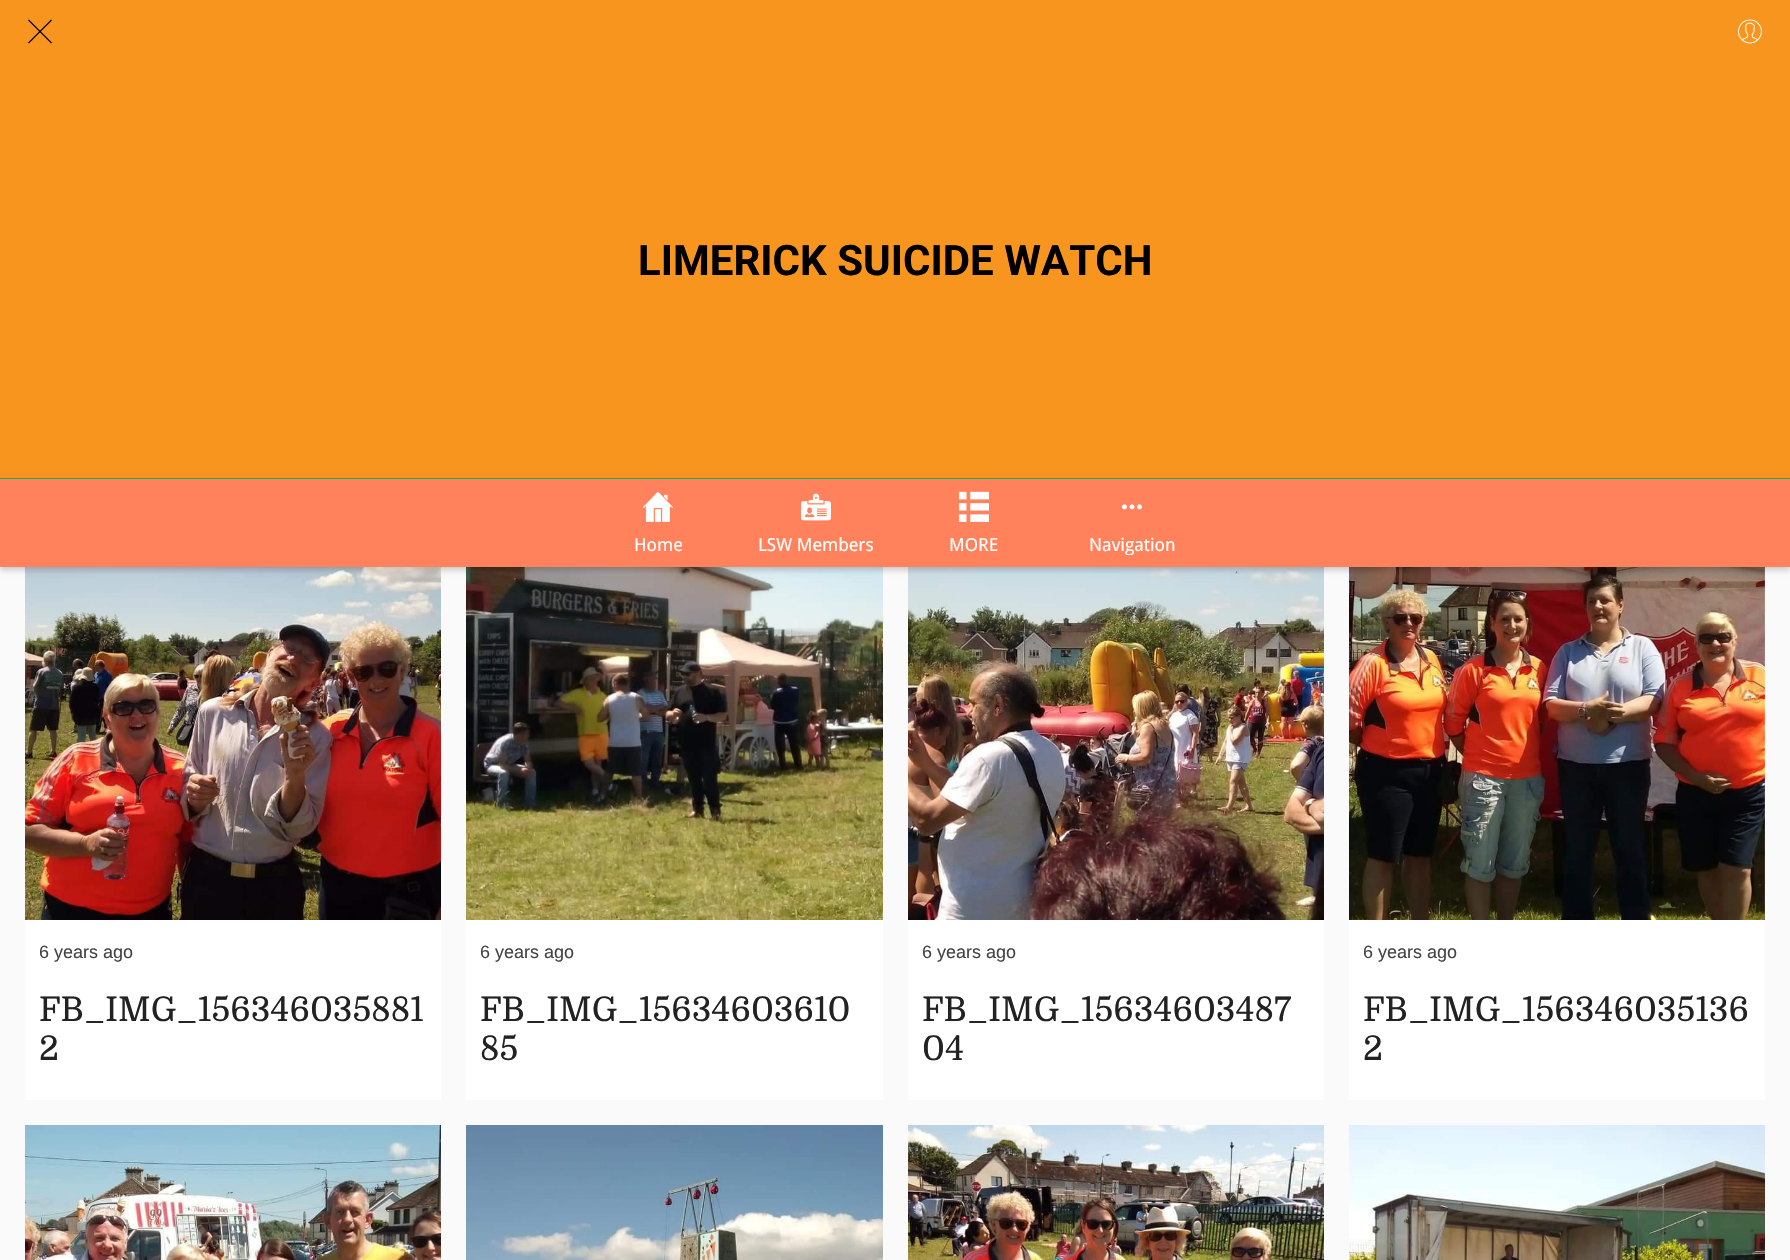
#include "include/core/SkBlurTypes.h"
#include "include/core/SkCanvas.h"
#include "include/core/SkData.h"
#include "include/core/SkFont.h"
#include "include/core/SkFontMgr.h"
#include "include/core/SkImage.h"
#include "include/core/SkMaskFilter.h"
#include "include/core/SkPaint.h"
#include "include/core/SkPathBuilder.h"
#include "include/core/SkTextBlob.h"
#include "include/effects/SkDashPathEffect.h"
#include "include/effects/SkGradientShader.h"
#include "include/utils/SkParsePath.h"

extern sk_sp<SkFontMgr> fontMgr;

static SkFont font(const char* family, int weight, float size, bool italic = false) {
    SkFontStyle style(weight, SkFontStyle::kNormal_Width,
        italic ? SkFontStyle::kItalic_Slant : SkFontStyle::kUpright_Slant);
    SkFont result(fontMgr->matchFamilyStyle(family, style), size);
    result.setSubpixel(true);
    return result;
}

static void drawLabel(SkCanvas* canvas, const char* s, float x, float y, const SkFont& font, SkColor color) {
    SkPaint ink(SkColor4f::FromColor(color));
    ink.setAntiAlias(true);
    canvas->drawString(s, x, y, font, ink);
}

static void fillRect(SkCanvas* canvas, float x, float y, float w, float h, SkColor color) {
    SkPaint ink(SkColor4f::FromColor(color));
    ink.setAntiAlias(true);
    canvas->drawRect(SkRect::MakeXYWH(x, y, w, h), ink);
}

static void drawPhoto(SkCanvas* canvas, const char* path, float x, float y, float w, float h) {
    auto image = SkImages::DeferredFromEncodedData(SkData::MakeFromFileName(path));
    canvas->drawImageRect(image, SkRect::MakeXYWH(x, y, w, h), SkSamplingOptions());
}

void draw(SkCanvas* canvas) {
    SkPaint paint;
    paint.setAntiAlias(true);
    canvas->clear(0xFFFAFAFA);
    fillRect(canvas, 0, 0, 1790, 478, 0xFFF8951E);
    fillRect(canvas, 0, 478, 1790, 1, 0xFF21AD54);
    drawPhoto(canvas, "assets/img1.png", 28, 19, 24, 25);
    drawPhoto(canvas, "assets/img2.png", 1738, 19, 24, 25);
    SkFont font1 = font("Roboto", 700, 42);
    drawLabel(canvas, "LIMERICK SUICIDE WATCH", 638, 275, font1, 0xFF000000);
    drawPhoto(canvas, "assets/img7.png", 25, 567, 416, 353);
    drawPhoto(canvas, "assets/img8.png", 466, 567, 417, 353);
    drawPhoto(canvas, "assets/img9.png", 908, 567, 416, 353);
    fillRect(canvas, 1349, 567, 416, 533, 0xFFFFFFFF);
    drawPhoto(canvas, "assets/img10.png", 1349, 567, 416, 353);
    paint.setColor(0x33000000);
    paint.setMaskFilter(SkMaskFilter::MakeBlur(kNormal_SkBlurStyle, 3));
    canvas->drawRect(SkRect::MakeXYWH(0, 482, 1790, 88), paint);
    paint.setMaskFilter(nullptr);
    fillRect(canvas, 0, 479, 1790, 88, 0xFFFF825C);
    drawPhoto(canvas, "assets/img3.png", 643, 492, 30, 30);
    SkFont font2 = font("Droid Sans", 400, 18);
    drawLabel(canvas, "Home", 634, 551, font2, 0xFFFFFFFF);
    drawPhoto(canvas, "assets/img4.png", 801, 493, 30, 28);
    drawLabel(canvas, "LSW Members", 758, 551, font2, 0xFFFFFFFF);
    drawPhoto(canvas, "assets/img5.png", 959, 491, 30, 31);
    drawLabel(canvas, "MORE", 949, 551, font2, 0xFFFFFFFF);
    drawPhoto(canvas, "assets/img6.png", 1122, 504, 20, 6);
    canvas->save();
    canvas->clipRect(SkRect::MakeXYWH(1053, 534, 158, 21));
    drawLabel(canvas, "Navigation", 1089, 551, font2, 0xFFFFFFFF);
    canvas->restore();
    fillRect(canvas, 25, 920, 416, 180, 0xFFFFFFFF);
    SkFont font3 = font("Liberation Sans", 400, 18);
    drawLabel(canvas, "6 years ago", 39, 958, font3, 0xFF444444);
    SkFont font4 = font("Domine", 400, 34);
    drawLabel(canvas, "FB_IMG_156346035881", 39, 1021, font4, 0xFF222222);
    drawLabel(canvas, "2", 39, 1060, font4, 0xFF222222);
    fillRect(canvas, 466, 920, 417, 180, 0xFFFFFFFF);
    drawLabel(canvas, "6 years ago", 480, 958, font3, 0xFF444444);
    drawLabel(canvas, "FB_IMG_15634603610", 480, 1021, font4, 0xFF222222);
    drawLabel(canvas, "85", 480, 1060, font4, 0xFF222222);
    fillRect(canvas, 908, 920, 416, 180, 0xFFFFFFFF);
    drawLabel(canvas, "6 years ago", 922, 958, font3, 0xFF444444);
    drawLabel(canvas, "FB_IMG_15634603487", 922, 1021, font4, 0xFF222222);
    drawLabel(canvas, "04", 922, 1060, font4, 0xFF222222);
    drawLabel(canvas, "6 years ago", 1363, 958, font3, 0xFF444444);
    drawLabel(canvas, "FB_IMG_156346035136", 1363, 1021, font4, 0xFF222222);
    drawLabel(canvas, "2", 1363, 1060, font4, 0xFF222222);
    drawPhoto(canvas, "assets/img11.png", 25, 1125, 416, 135);
    drawPhoto(canvas, "assets/img12.png", 466, 1125, 417, 135);
    drawPhoto(canvas, "assets/img13.png", 908, 1125, 416, 135);
    drawPhoto(canvas, "assets/img14.png", 1349, 1125, 416, 135);
}
